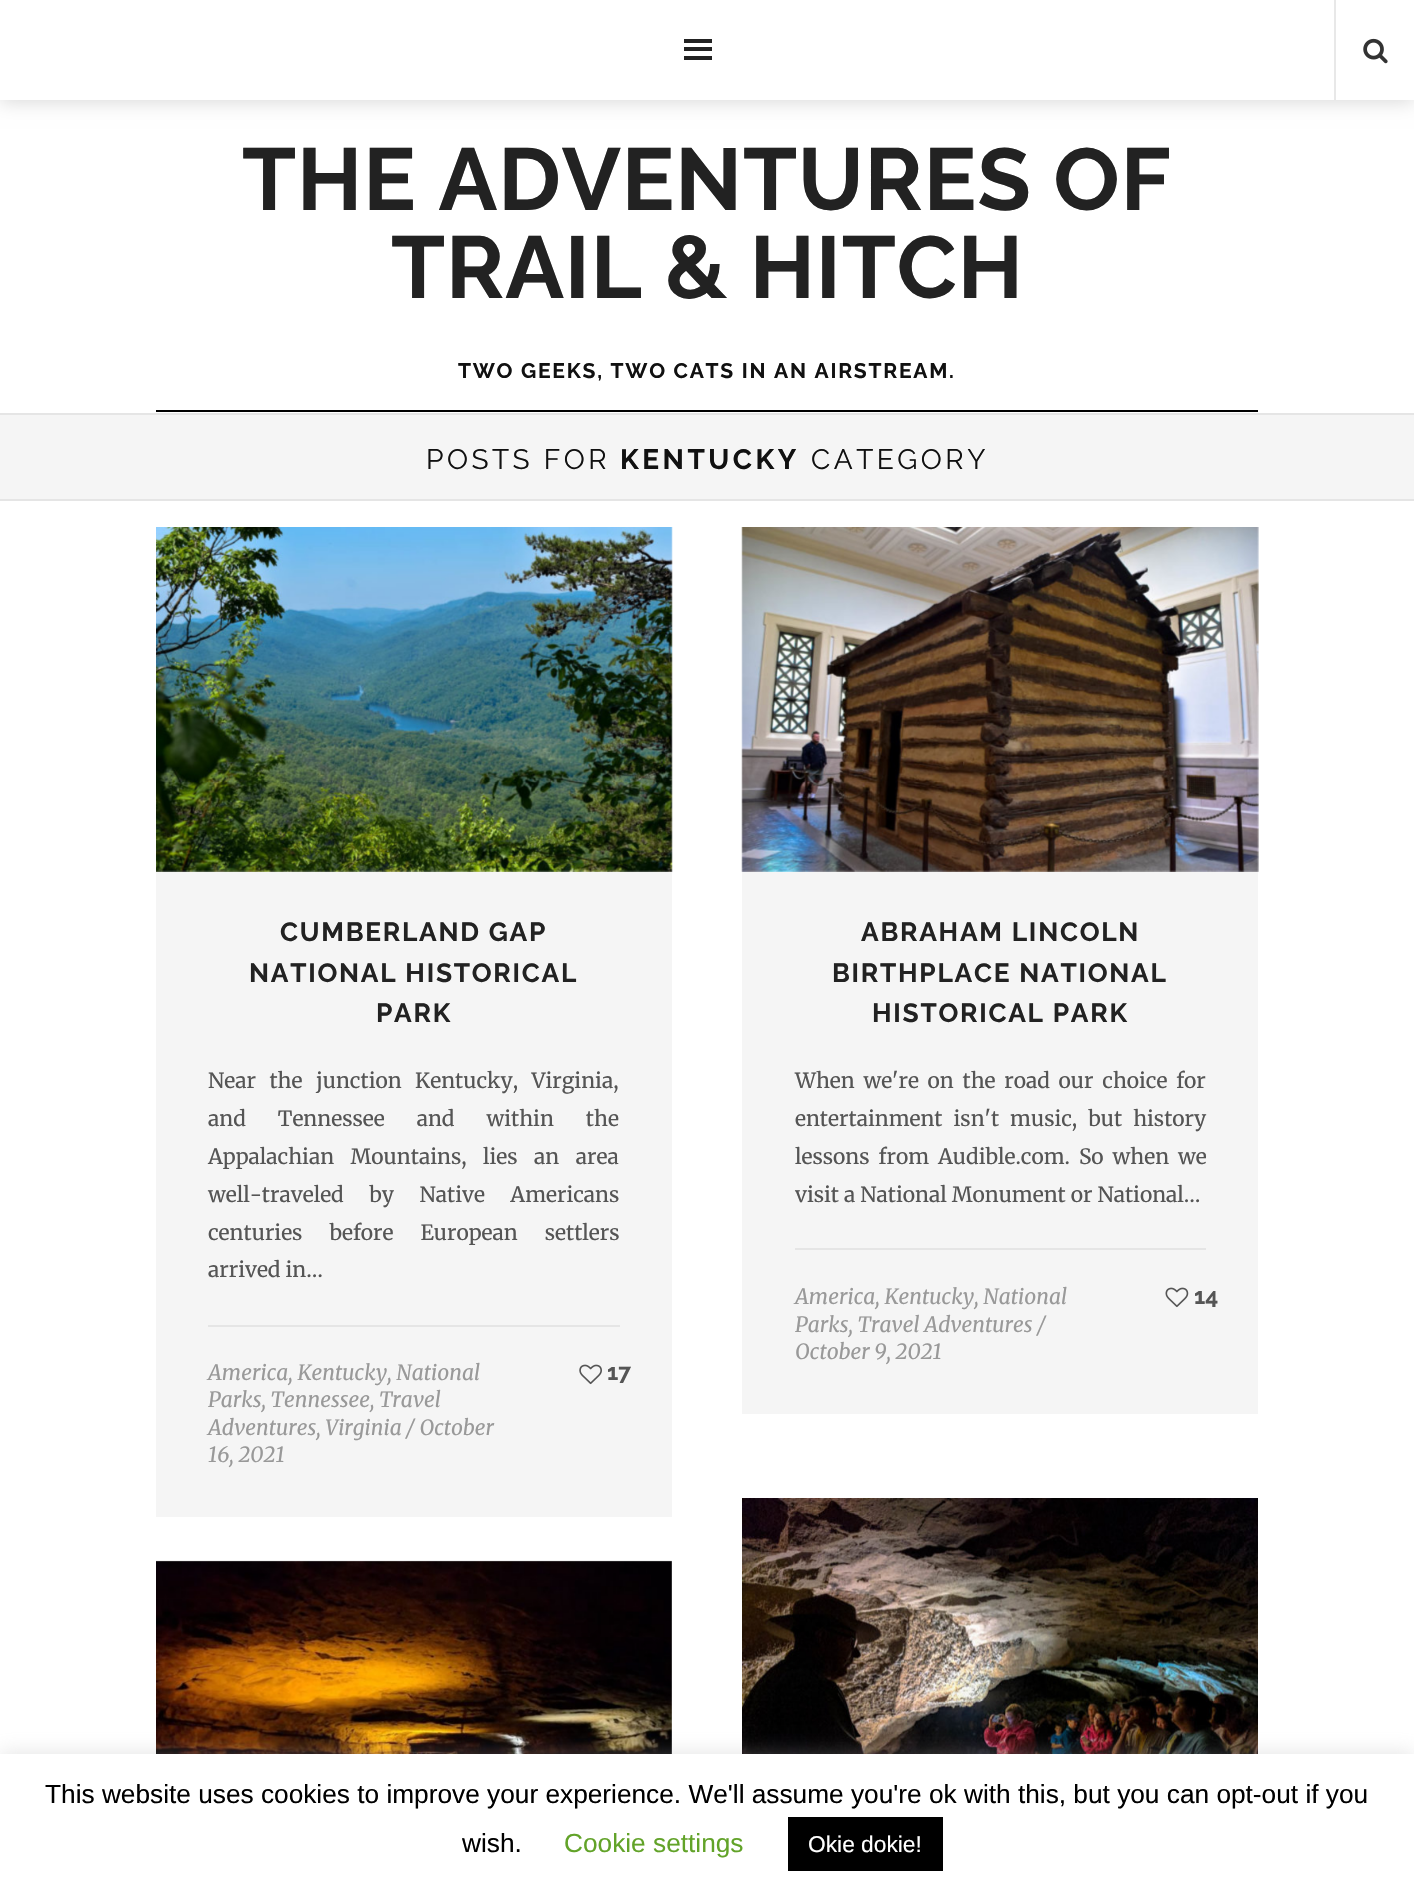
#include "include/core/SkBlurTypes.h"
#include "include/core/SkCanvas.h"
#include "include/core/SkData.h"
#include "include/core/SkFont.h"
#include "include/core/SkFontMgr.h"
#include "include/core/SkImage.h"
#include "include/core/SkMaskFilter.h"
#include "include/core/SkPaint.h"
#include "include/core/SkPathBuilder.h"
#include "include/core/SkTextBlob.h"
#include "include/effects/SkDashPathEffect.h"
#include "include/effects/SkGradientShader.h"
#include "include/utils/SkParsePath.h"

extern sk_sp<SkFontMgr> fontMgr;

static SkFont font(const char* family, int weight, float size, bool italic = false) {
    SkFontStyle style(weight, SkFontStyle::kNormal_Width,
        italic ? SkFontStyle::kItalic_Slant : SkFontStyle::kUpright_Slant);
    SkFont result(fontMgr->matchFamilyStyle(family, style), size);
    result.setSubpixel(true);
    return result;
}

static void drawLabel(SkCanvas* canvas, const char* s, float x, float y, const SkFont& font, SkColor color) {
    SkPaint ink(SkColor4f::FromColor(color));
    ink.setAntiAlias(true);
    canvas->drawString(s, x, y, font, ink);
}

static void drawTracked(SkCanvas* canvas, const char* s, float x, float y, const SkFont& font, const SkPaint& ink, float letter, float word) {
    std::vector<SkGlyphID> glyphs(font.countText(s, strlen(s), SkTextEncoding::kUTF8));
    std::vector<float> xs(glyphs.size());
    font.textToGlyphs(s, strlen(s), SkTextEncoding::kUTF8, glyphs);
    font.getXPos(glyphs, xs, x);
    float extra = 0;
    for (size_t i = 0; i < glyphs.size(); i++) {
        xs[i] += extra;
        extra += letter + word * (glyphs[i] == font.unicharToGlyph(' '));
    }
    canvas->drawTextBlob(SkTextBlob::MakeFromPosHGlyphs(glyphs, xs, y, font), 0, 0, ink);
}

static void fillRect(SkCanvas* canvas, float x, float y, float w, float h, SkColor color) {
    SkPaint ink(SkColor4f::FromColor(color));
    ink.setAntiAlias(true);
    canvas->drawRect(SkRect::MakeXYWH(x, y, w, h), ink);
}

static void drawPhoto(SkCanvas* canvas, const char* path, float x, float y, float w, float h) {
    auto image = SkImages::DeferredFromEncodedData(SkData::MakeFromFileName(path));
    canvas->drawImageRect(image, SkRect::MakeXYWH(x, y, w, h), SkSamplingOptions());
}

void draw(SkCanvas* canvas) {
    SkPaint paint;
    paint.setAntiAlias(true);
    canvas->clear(0xFFFFFFFF);
    paint.setColor(0x26000000);
    paint.setMaskFilter(SkMaskFilter::MakeBlur(kNormal_SkBlurStyle, 9));
    canvas->drawRect(SkRect::MakeXYWH(0, 2, 1414, 100), paint);
    paint.setMaskFilter(nullptr);
    fillRect(canvas, 0, 0, 1414, 100, 0xFFFFFFFF);
    fillRect(canvas, 684, 39, 28, 4, 0xFF222222);
    fillRect(canvas, 684, 47, 28, 4, 0xFF222222);
    fillRect(canvas, 684, 56, 28, 4, 0xFF222222);
    fillRect(canvas, 1334, 0, 2, 100, 0xFFE8E8E8);
    drawPhoto(canvas, "assets/img1.png", 1363, 38, 25, 26);
    SkFont font1 = font("Raleway", 700, 87.5f);
    paint.setColor(0xFF222222);
    drawTracked(canvas, "THE ADVENTURES OF", 242, 210, font1, paint, 0.9f, 0);
    drawTracked(canvas, "TRAIL & HITCH", 391, 298, font1, paint, 0.9f, 0);
    fillRect(canvas, 156, 410, 1102, 2, 0xFF000000);
    SkFont font2 = font("Raleway", 700, 21);
    paint.setColor(0xFF111111);
    drawTracked(canvas, "TWO GEEKS, TWO CATS IN AN AIRSTREAM.", 458, 378, font2, paint, 1.75f, 0);
    fillRect(canvas, 0, 415, 1414, 84, 0xFFF5F5F5);
    fillRect(canvas, 0, 413, 1414, 2, 0xFFE5E5E5);
    fillRect(canvas, 0, 499, 1414, 2, 0xFFE5E5E5);
    SkFont font3 = font("Raleway", 400, 28);
    drawTracked(canvas, "POSTS FOR", 426, 469, font3, paint, 3.5f, 0);
    SkFont font4 = font("Raleway", 700, 28);
    drawTracked(canvas, "KENTUCKY", 620, 469, font4, paint, 3.5f, 0);
    drawTracked(canvas, "CATEGORY", 811, 469, font3, paint, 3.5f, 0);
    fillRect(canvas, 156, 527, 516, 990, 0xFFF5F5F5);
    drawPhoto(canvas, "assets/img2.png", 156, 527, 517, 345);
    SkFont font5 = font("Raleway", 700, 26.25f);
    paint.setColor(0xFF222222);
    drawTracked(canvas, "CUMBERLAND GAP", 280, 941, font5, paint, 1.75f, 0);
    drawTracked(canvas, "NATIONAL HISTORICAL", 249, 982, font5, paint, 1.75f, 0);
    drawTracked(canvas, "PARK", 376, 1022, font5, paint, 1.75f, 0);
    SkFont font6 = font("Merriweather", 400, 21);
    paint.setColor(0xFF555555);
    drawTracked(canvas, "Near the junction Kentucky, Virginia,", 208, 1088, font6, paint, 0, 8.5f);
    drawTracked(canvas, "and Tennessee and within the", 208, 1126, font6, paint, 0, 27);
    drawTracked(canvas, "Appalachian Mountains, lies an area", 208, 1164, font6, paint, 0, 11.5f);
    drawTracked(canvas, "well-traveled by Native Americans", 208, 1202, font6, paint, 0, 20.5f);
    drawTracked(canvas, "centuries before European settlers", 208, 1240, font6, paint, 0, 22);
    drawLabel(canvas, "arrived in…", 208, 1277, font6, 0xFF555555);
    fillRect(canvas, 208, 1325, 412, 2, 0xFFE5E5E5);
    SkFont font7 = font("Merriweather", 400, 21, true);
    drawLabel(canvas, "America, Kentucky, National", 208, 1380, font7, 0xFF999999);
    drawLabel(canvas, "Parks, Tennessee, Travel", 208, 1407, font7, 0xFF999999);
    drawLabel(canvas, "Adventures, Virginia / October", 208, 1435, font7, 0xFF999999);
    drawLabel(canvas, "16, 2021", 208, 1462, font7, 0xFF999999);
    drawPhoto(canvas, "assets/img3.png", 579, 1364, 23, 21);
    SkFont font8 = font("Raleway", 700, 22.75f);
    drawLabel(canvas, "17", 607, 1380, font8, 0xFF555555);
    fillRect(canvas, 742, 527, 516, 887, 0xFFF5F5F5);
    drawPhoto(canvas, "assets/img4.png", 741, 527, 518, 345);
    paint.setColor(0xFF222222);
    drawTracked(canvas, "ABRAHAM LINCOLN", 861, 941, font5, paint, 1.75f, 0);
    drawTracked(canvas, "BIRTHPLACE NATIONAL", 832, 982, font5, paint, 1.75f, 0);
    drawTracked(canvas, "HISTORICAL PARK", 872, 1022, font5, paint, 1.75f, 0);
    paint.setColor(0xFF555555);
    drawTracked(canvas, "When we're on the road our choice for", 795, 1088, font6, paint, 0, 3.75f);
    drawTracked(canvas, "entertainment isn't music, but history", 795, 1126, font6, paint, 0, 6);
    drawTracked(canvas, "lessons from Audible.com. So when we", 795, 1164, font6, paint, 0, 4);
    drawLabel(canvas, "visit a National Monument or National…", 795, 1202, font6, 0xFF555555);
    fillRect(canvas, 795, 1248, 411, 2, 0xFFE5E5E5);
    drawLabel(canvas, "America, Kentucky, National", 795, 1304, font7, 0xFF999999);
    drawLabel(canvas, "Parks, Travel Adventures /", 795, 1332, font7, 0xFF999999);
    drawLabel(canvas, "October 9, 2021", 795, 1359, font7, 0xFF999999);
    drawPhoto(canvas, "assets/img5.png", 1165, 1287, 24, 21);
    drawLabel(canvas, "14", 1194, 1304, font8, 0xFF555555);
    fillRect(canvas, 156, 1561, 516, 193, 0xFFF5F5F5);
    drawPhoto(canvas, "assets/img6.png", 156, 1560, 516, 194);
    drawPhoto(canvas, "assets/img7.png", 742, 1498, 516, 256);
    paint.setColor(0x4DACABAB);
    paint.setMaskFilter(SkMaskFilter::MakeBlur(kNormal_SkBlurStyle, 9));
    canvas->drawRect(SkRect::MakeXYWH(0, 1752, 1414, 147), paint);
    paint.setMaskFilter(nullptr);
    fillRect(canvas, 0, 1754, 1414, 145, 0xFFFFFFFF);
    SkFont font9 = font("Liberation Sans", 400, 26.25f);
    drawLabel(canvas, "This website uses cookies to improve your experience. We'll assume you're ok with this, but you can opt-out if you", 45, 1803, font9, 0xFF000000);
    drawLabel(canvas, "wish.", 462, 1852, font9, 0xFF000000);
    drawLabel(canvas, "Cookie settings", 564, 1852, font9, 0xFF62A329);
    fillRect(canvas, 788, 1817, 155, 54, 0xFF000000);
    SkFont font10 = font("Liberation Sans", 400, 22.75f);
    drawLabel(canvas, "Okie dokie!", 808, 1852, font10, 0xFFFFFFFF);
}
